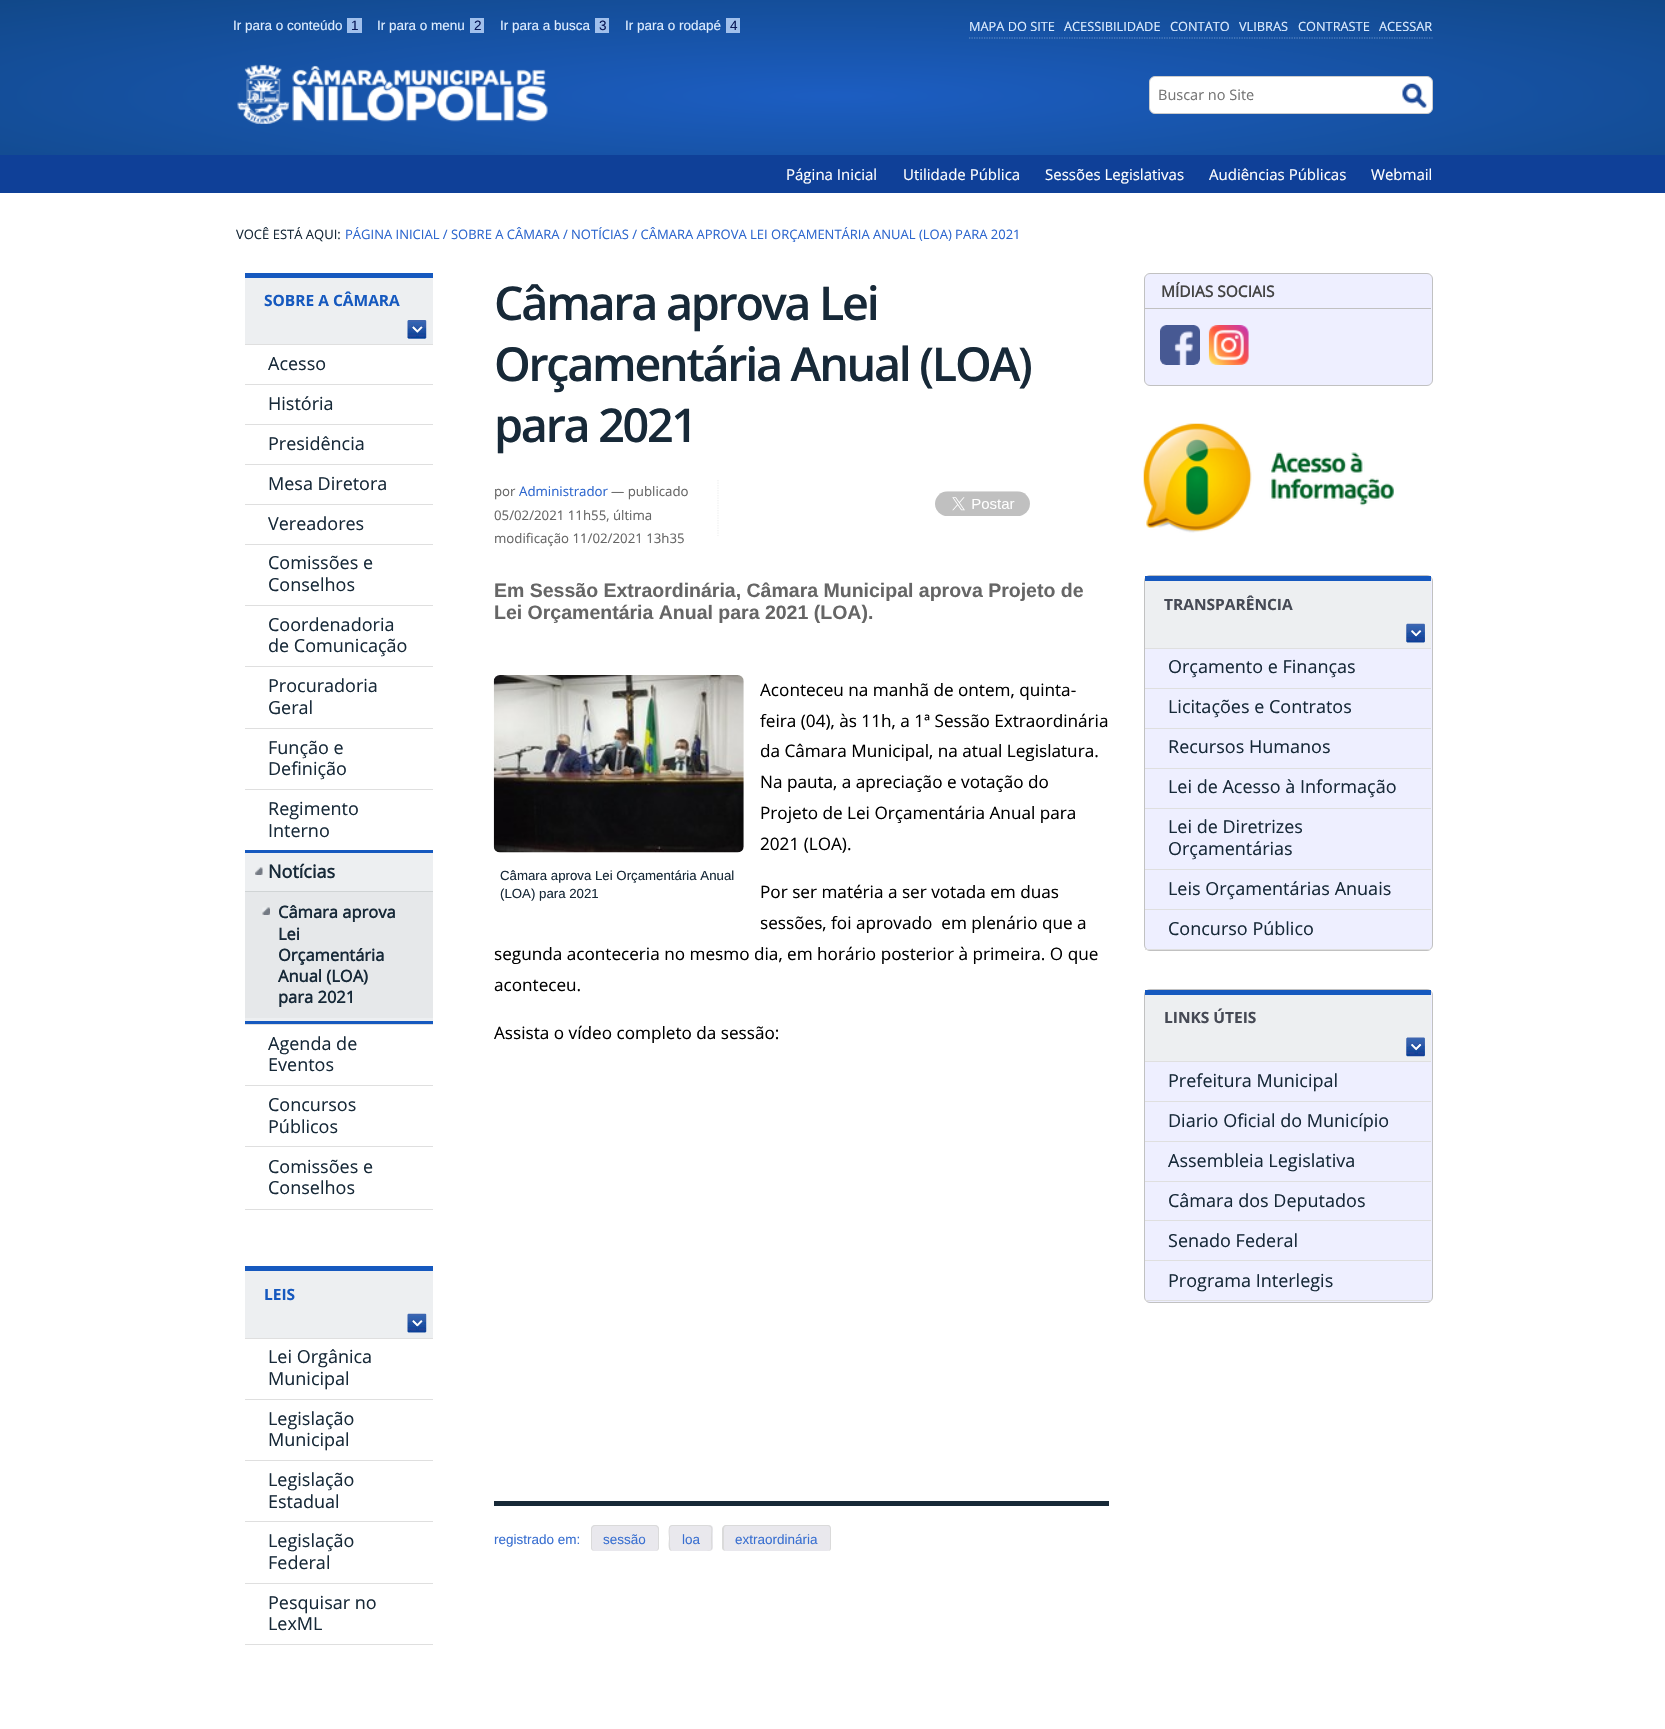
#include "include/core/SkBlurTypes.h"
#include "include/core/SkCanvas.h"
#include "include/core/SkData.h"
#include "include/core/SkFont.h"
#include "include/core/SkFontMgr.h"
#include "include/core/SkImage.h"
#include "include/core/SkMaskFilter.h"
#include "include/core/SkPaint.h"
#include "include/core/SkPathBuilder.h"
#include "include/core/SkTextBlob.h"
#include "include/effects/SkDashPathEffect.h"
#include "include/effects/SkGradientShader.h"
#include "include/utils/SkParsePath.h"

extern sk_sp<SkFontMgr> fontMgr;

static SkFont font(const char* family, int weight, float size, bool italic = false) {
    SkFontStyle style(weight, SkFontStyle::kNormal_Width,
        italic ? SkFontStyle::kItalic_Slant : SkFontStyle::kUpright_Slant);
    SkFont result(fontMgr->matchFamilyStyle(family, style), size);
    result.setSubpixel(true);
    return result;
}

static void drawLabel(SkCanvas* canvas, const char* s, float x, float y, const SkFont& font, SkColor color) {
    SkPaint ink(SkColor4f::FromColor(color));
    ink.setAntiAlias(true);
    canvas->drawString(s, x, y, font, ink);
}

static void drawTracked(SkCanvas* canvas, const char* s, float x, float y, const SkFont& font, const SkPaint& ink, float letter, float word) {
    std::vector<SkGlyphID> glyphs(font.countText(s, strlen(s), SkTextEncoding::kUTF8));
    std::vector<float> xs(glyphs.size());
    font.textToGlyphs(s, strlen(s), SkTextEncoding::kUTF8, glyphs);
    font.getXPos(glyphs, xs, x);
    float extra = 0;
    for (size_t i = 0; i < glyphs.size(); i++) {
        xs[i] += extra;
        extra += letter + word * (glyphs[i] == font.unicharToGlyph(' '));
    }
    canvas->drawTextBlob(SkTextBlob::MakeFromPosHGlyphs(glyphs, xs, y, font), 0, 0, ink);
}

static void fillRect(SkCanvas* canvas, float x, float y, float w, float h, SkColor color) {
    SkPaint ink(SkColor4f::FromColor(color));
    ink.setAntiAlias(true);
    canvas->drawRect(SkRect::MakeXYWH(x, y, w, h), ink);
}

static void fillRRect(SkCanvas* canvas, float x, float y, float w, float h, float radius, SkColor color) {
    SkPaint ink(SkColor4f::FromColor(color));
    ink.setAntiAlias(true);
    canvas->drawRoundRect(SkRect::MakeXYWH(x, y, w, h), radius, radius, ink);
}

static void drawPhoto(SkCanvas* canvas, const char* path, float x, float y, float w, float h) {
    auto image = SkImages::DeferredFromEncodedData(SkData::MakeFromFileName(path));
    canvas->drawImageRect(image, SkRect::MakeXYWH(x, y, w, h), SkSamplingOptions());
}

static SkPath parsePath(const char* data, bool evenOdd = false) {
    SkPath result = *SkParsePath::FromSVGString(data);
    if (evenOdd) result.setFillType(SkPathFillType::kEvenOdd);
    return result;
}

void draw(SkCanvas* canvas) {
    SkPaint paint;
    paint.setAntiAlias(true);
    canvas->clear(0xFFFFFFFF);
    {
        const SkColor colors[] = {0xFF1C5DC1, 0xFF114889};
        const float stops[] = {0.01f, 1};
        SkMatrix m = SkMatrix::Translate(833, 96).preScale(1177, 136);
        paint.setShader(SkGradientShader::MakeRadial({0, 0}, 1, colors, stops, 2, SkTileMode::kClamp, 0, &m));
        paint.setAlpha(255);
    }
    canvas->drawRect(SkRect::MakeXYWH(0, 0, 1665, 155), paint);
    SkFont font1 = font("Liberation Sans", 400, 13.5f);
    drawLabel(canvas, "Ir para o conteúdo", 233, 30, font1, 0xFFDCECFF);
    fillRect(canvas, 347, 18, 15, 15, 0xFFA1C0EC);
    drawLabel(canvas, "1", 351, 30, font1, 0xFF0A1857);
    drawLabel(canvas, "Ir para o menu", 377, 30, font1, 0xFFDCECFF);
    fillRect(canvas, 470, 18, 14, 15, 0xFFA1C0EC);
    drawLabel(canvas, "2", 474, 30, font1, 0xFF0A1857);
    drawLabel(canvas, "Ir para a busca", 500, 30, font1, 0xFFDCECFF);
    fillRect(canvas, 595, 18, 14, 15, 0xFFA1C0EC);
    drawLabel(canvas, "3", 599, 30, font1, 0xFF0A1857);
    drawLabel(canvas, "Ir para o rodapé", 625, 30, font1, 0xFFDCECFF);
    fillRect(canvas, 726, 18, 14, 15, 0xFFA1C0EC);
    drawLabel(canvas, "4", 730, 30, font1, 0xFF0A1857);
    paint.setStroke(true);
    paint.setStrokeWidth(1.2f);
    paint.setShader(nullptr);
    paint.setColor(0xFF6893CB);
    paint.setPathEffect(SkDashPathEffect::Make({{1.25f, 1.25f}}, 0));
    canvas->drawPath(parsePath("M969 38H1432.5"), paint);
    paint.setPathEffect(nullptr);
    SkFont font2 = font("Open Sans", 400, 12.75f);
    drawLabel(canvas, "MAPA DO SITE", 969, 31, font2, 0xFFDCECFF);
    drawLabel(canvas, "ACESSIBILIDADE", 1064, 31, font2, 0xFFDCECFF);
    drawLabel(canvas, "CONTATO", 1170, 31, font2, 0xFFDCECFF);
    drawLabel(canvas, "VLIBRAS", 1239, 31, font2, 0xFFDCECFF);
    drawLabel(canvas, "CONTRASTE", 1298, 31, font2, 0xFFDCECFF);
    drawLabel(canvas, "ACESSAR", 1379, 31, font2, 0xFFDCECFF);
    drawPhoto(canvas, "assets/img1.png", 237, 64, 311, 60);
    paint.setStroke(false);
    paint.setColor(0xFFFFFFFF);
    canvas->drawRoundRect(SkRect::MakeXYWH(1149.5f, 76.5f, 283, 37), 5.5f, 5.5f, paint);
    paint.setStroke(true);
    paint.setStrokeWidth(1);
    paint.setColor(0xFFCCCCCC);
    canvas->drawRoundRect(SkRect::MakeXYWH(1149.5f, 76.5f, 283, 37), 5.5f, 5.5f, paint);
    SkFont font3 = font("Open Sans", 400, 14.5f);
    drawLabel(canvas, "Buscar no Site", 1158, 100, font3, 0xFF757575);
    drawPhoto(canvas, "assets/img2.png", 1402, 83, 25, 25);
    fillRect(canvas, 0, 155, 1665, 38, 0xFF0F4098);
    SkFont font4 = font("Open Sans", 400, 15);
    drawLabel(canvas, "Página Inicial", 786, 180, font4, 0xFFFFFFFF);
    drawLabel(canvas, "Utilidade Pública", 903, 180, font4, 0xFFFFFFFF);
    drawLabel(canvas, "Sessões Legislativas", 1045, 180, font4, 0xFFFFFFFF);
    drawLabel(canvas, "Audiências Públicas", 1209, 180, font4, 0xFFFFFFFF);
    drawLabel(canvas, "Webmail", 1371, 180, font4, 0xFFFFFFFF);
    SkFont font5 = font("Open Sans", 400, 13);
    drawLabel(canvas, "VOCÊ ESTÁ AQUI:", 236, 239, font5, 0xFF172938);
    drawLabel(canvas, "PÁGINA INICIAL / SOBRE A CÂMARA / NOTÍCIAS / CÂMARA APROVA LEI ORÇAMENTÁRIA ANUAL (LOA) PARA 2021", 345, 239, font5, 0xFF2C66CE);
    fillRect(canvas, 245, 278, 188, 66, 0xFFEDEFF1);
    drawPhoto(canvas, "assets/img3.png", 407, 320, 20, 19);
    fillRect(canvas, 245, 273, 188, 5, 0xFF1659BF);
    SkFont font6 = font("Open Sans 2", 700, 15.5f);
    drawLabel(canvas, "SOBRE A CÂMARA", 264, 306, font6, 0xFF1659BF);
    fillRect(canvas, 245, 344, 188, 1, 0xFFDFDFDF);
    SkFont font7 = font("Open Sans", 400, 18);
    drawLabel(canvas, "Acesso", 268, 370, font7, 0xFF172938);
    fillRect(canvas, 245, 384, 188, 1, 0xFFDFDFDF);
    drawLabel(canvas, "História", 268, 410, font7, 0xFF172938);
    fillRect(canvas, 245, 424, 188, 1, 0xFFDFDFDF);
    drawLabel(canvas, "Presidência", 268, 450, font7, 0xFF172938);
    fillRect(canvas, 245, 464, 188, 1, 0xFFDFDFDF);
    drawLabel(canvas, "Mesa Diretora", 268, 490, font7, 0xFF172938);
    fillRect(canvas, 245, 504, 188, 1, 0xFFDFDFDF);
    drawLabel(canvas, "Vereadores", 268, 530, font7, 0xFF172938);
    fillRect(canvas, 245, 544, 188, 1, 0xFFDFDFDF);
    drawLabel(canvas, "Comissões e", 268, 569, font7, 0xFF172938);
    drawLabel(canvas, "Conselhos", 268, 591, font7, 0xFF172938);
    fillRect(canvas, 245, 605, 188, 1, 0xFFDFDFDF);
    drawLabel(canvas, "Coordenadoria", 268, 631, font7, 0xFF172938);
    drawLabel(canvas, "de Comunicação", 268, 652, font7, 0xFF172938);
    fillRect(canvas, 245, 666, 188, 1, 0xFFDFDFDF);
    drawLabel(canvas, "Procuradoria", 268, 692, font7, 0xFF172938);
    drawLabel(canvas, "Geral", 268, 714, font7, 0xFF172938);
    fillRect(canvas, 245, 728, 188, 1, 0xFFDFDFDF);
    drawLabel(canvas, "Função e", 268, 754, font7, 0xFF172938);
    drawLabel(canvas, "Definição", 268, 775, font7, 0xFF172938);
    fillRect(canvas, 245, 789, 188, 1, 0xFFDFDFDF);
    drawLabel(canvas, "Regimento", 268, 815, font7, 0xFF172938);
    drawLabel(canvas, "Interno", 268, 837, font7, 0xFF172938);
    fillRect(canvas, 245, 853, 188, 168, 0xFFEDEFF1);
    fillRect(canvas, 245, 850, 188, 3, 0xFF1659BF);
    fillRect(canvas, 245, 1021, 188, 3, 0xFF1659BF);
    drawPhoto(canvas, "assets/img4.png", 255, 867, 8, 8);
    SkFont font8 = font("Open Sans", 700, 18);
    drawLabel(canvas, "Notícias", 268, 878, font8, 0xFF172938);
    fillRect(canvas, 245, 892, 188, 126, 0xFFE6E8EA);
    fillRect(canvas, 245, 891, 188, 1, 0xFFD0D4D5);
    drawPhoto(canvas, "assets/img5.png", 262, 907, 8, 8);
    SkFont font9 = font("Open Sans", 700, 16.5f);
    drawLabel(canvas, "Câmara aprova", 278, 918, font9, 0xFF172938);
    drawLabel(canvas, "Lei", 278, 940, font9, 0xFF172938);
    drawLabel(canvas, "Orçamentária", 278, 961, font9, 0xFF172938);
    drawLabel(canvas, "Anual (LOA)", 278, 982, font9, 0xFF172938);
    drawLabel(canvas, "para 2021", 278, 1003, font9, 0xFF172938);
    fillRect(canvas, 245, 1024, 188, 1, 0xFFDFDFDF);
    drawLabel(canvas, "Agenda de", 268, 1050, font7, 0xFF172938);
    drawLabel(canvas, "Eventos", 268, 1071, font7, 0xFF172938);
    fillRect(canvas, 245, 1085, 188, 1, 0xFFDFDFDF);
    drawLabel(canvas, "Concursos", 268, 1111, font7, 0xFF172938);
    drawLabel(canvas, "Públicos", 268, 1133, font7, 0xFF172938);
    fillRect(canvas, 245, 1146, 188, 1, 0xFFDFDFDF);
    fillRect(canvas, 245, 1209, 188, 1, 0xFFDFDFDF);
    drawLabel(canvas, "Comissões e", 268, 1173, font7, 0xFF172938);
    drawLabel(canvas, "Conselhos", 268, 1194, font7, 0xFF172938);
    fillRect(canvas, 245, 1271, 188, 67, 0xFFEDEFF1);
    drawPhoto(canvas, "assets/img6.png", 407, 1313, 20, 20);
    fillRect(canvas, 245, 1266, 188, 5, 0xFF1659BF);
    drawLabel(canvas, "LEIS", 264, 1300, font6, 0xFF1659BF);
    fillRect(canvas, 245, 1338, 188, 1, 0xFFDFDFDF);
    drawLabel(canvas, "Lei Orgânica", 268, 1363, font7, 0xFF172938);
    drawLabel(canvas, "Municipal", 268, 1385, font7, 0xFF172938);
    fillRect(canvas, 245, 1399, 188, 1, 0xFFDFDFDF);
    drawLabel(canvas, "Legislação", 268, 1425, font7, 0xFF172938);
    drawLabel(canvas, "Municipal", 268, 1446, font7, 0xFF172938);
    fillRect(canvas, 245, 1460, 188, 1, 0xFFDFDFDF);
    drawLabel(canvas, "Legislação", 268, 1486, font7, 0xFF172938);
    drawLabel(canvas, "Estadual", 268, 1508, font7, 0xFF172938);
    fillRect(canvas, 245, 1521, 188, 1, 0xFFDFDFDF);
    drawLabel(canvas, "Legislação", 268, 1547, font7, 0xFF172938);
    drawLabel(canvas, "Federal", 268, 1569, font7, 0xFF172938);
    fillRect(canvas, 245, 1583, 188, 1, 0xFFDFDFDF);
    fillRect(canvas, 245, 1644, 188, 1, 0xFFDFDFDF);
    drawLabel(canvas, "Pesquisar no", 268, 1609, font7, 0xFF172938);
    drawLabel(canvas, "LexML", 268, 1630, font7, 0xFF172938);
    SkFont font10 = font("Open Sans", 600, 46.75f);
    paint.setStroke(false);
    paint.setColor(0xFF172938);
    drawTracked(canvas, "Câmara aprova Lei", 494, 320, font10, paint, -2.3f, 0);
    drawTracked(canvas, "Orçamentária Anual (LOA)", 494, 381, font10, paint, -2.3f, 0);
    drawTracked(canvas, "para 2021", 494, 442, font10, paint, -2.3f, 0);
    SkFont font11 = font("Open Sans", 400, 13.25f);
    drawLabel(canvas, "por", 494, 496, font11, 0xFF666666);
    drawLabel(canvas, "Administrador", 519, 496, font11, 0xFF2C66CE);
    drawLabel(canvas, "— publicado", 611, 496, font11, 0xFF666666);
    drawLabel(canvas, "05/02/2021 11h55, última", 494, 520, font11, 0xFF666666);
    drawLabel(canvas, "modificação 11/02/2021 13h35", 494, 543, font11, 0xFF666666);
    paint.setStroke(true);
    paint.setStrokeWidth(1.2f);
    paint.setColor(0xFFEFF0F0);
    paint.setPathEffect(SkDashPathEffect::Make({{1.25f, 1.25f}}, 0));
    canvas->drawPath(parsePath("M718 480V536"), paint);
    paint.setPathEffect(nullptr);
    drawPhoto(canvas, "assets/img7.png", 935, 491, 95, 25);
    SkFont font12 = font("Liberation Sans", 700, 19.5f);
    drawLabel(canvas, "Em Sessão Extraordinária, Câmara Municipal aprova Projeto de", 494, 597, font12, 0xFF666666);
    drawLabel(canvas, "Lei Orçamentária Anual para 2021 (LOA).", 494, 619, font12, 0xFF666666);
    SkFont font13 = font("Open Sans", 400, 17.15f);
    drawLabel(canvas, "Aconteceu na manhã de ontem, quinta-", 760, 696, font13, 0xFF000000);
    drawLabel(canvas, "feira (04), às 11h, a 1ª Sessão Extraordinária", 760, 727, font13, 0xFF000000);
    drawLabel(canvas, "da Câmara Municipal, na atual Legislatura.", 760, 757, font13, 0xFF000000);
    drawLabel(canvas, "Na pauta, a apreciação e votação do", 760, 788, font13, 0xFF000000);
    drawLabel(canvas, "Projeto de Lei Orçamentária Anual para", 760, 819, font13, 0xFF000000);
    drawLabel(canvas, "2021 (LOA).", 760, 850, font13, 0xFF000000);
    drawLabel(canvas, "Por ser matéria a ser votada em duas", 760, 898, font13, 0xFF000000);
    drawLabel(canvas, "sessões, foi aprovado  em plenário que a", 760, 929, font13, 0xFF000000);
    drawLabel(canvas, "segunda aconteceria no mesmo dia, em horário posterior à primeira. O que", 494, 960, font13, 0xFF000000);
    drawLabel(canvas, "aconteceu.", 494, 991, font13, 0xFF000000);
    drawLabel(canvas, "Assista o vídeo completo da sessão:", 494, 1039, font13, 0xFF000000);
    drawPhoto(canvas, "assets/img8.png", 493, 675, 251, 178);
    SkFont font14 = font("Liberation Sans", 400, 13.25f);
    drawLabel(canvas, "Câmara aprova Lei Orçamentária Anual", 500, 880, font14, 0xFF172938);
    drawLabel(canvas, "(LOA) para 2021", 500, 898, font14, 0xFF172938);
    fillRect(canvas, 494, 1501, 615, 5, 0xFF172937);
    drawLabel(canvas, "registrado em:", 494, 1544, font1, 0xFF3A70D1);
    fillRRect(canvas, 591, 1525, 68, 26, 4, 0xFFE9E8ED);
    paint.setStroke(false);
    paint.setColor(0xFFDADADA);
    canvas->drawPath(parsePath("M595 1525H655C657 1525 659 1527 659 1529V1548C659 1550 657 1551 655 1551H595C593 1551 591 1550 591 1548V1529C591 1527 593 1525 595 1525ZM595 1526H655C656 1526 658 1527 658 1529V1548C658 1550 656 1551 655 1551H595C594 1551 592 1550 592 1548V1529C592 1527 594 1526 595 1526Z", true), paint);
    drawLabel(canvas, "sessão", 603, 1544, font1, 0xFF3A70D1);
    fillRRect(canvas, 669, 1525, 44, 26, 4, 0xFFE9E8ED);
    canvas->drawPath(parsePath("M672 1525H703C715 1525 712 1526 712 1538C712 1550 715 1551 703 1551H672C667 1551 669 1541 669 1538C669 1535 667 1525 672 1525ZM672 1526H697C715 1526 711 1524 711 1541C711 1544 712 1549 710 1551H672C669 1549 670 1541 670 1538C670 1536 668 1526 672 1526Z", true), paint);
    drawLabel(canvas, "loa", 682, 1544, font1, 0xFF3A70D1);
    fillRRect(canvas, 723, 1525, 108, 26, 4, 0xFFE9E8ED);
    canvas->drawPath(parsePath("M726 1525H828C830 1525 831 1527 831 1529V1548C831 1550 830 1551 828 1551H726C724 1551 722 1550 722 1548V1529C722 1527 724 1525 726 1525ZM726 1526H828C829 1526 830 1527 830 1529V1548C830 1550 829 1551 828 1551H726C725 1551 724 1550 724 1548V1529C724 1527 725 1526 726 1526Z", true), paint);
    drawLabel(canvas, "extraordinária", 735, 1544, font1, 0xFF3A70D1);
    paint.setColor(0xFFEEEFFF);
    canvas->drawRoundRect(SkRect::MakeXYWH(1144.5f, 273.5f, 288, 112), 5.5f, 5.5f, paint);
    paint.setStroke(true);
    paint.setStrokeWidth(1);
    paint.setColor(0xFFC1C1C1);
    canvas->drawRoundRect(SkRect::MakeXYWH(1144.5f, 273.5f, 288, 112), 5.5f, 5.5f, paint);
    fillRect(canvas, 1145, 308, 286, 1, 0xFFC1C1C1);
    SkFont font15 = font("Open Sans", 700, 15.5f);
    drawLabel(canvas, "MÍDIAS SOCIAIS", 1161, 297, font15, 0xFF444444);
    drawPhoto(canvas, "assets/img9.png", 1160, 325, 40, 40);
    drawPhoto(canvas, "assets/img10.png", 1208, 325, 41, 40);
    drawPhoto(canvas, "assets/img11.png", 1143, 423, 251, 110);
    paint.setStroke(false);
    paint.setColor(0xFFEEEFFF);
    canvas->drawRoundRect(SkRect::MakeXYWH(1144.5f, 575.5f, 288, 375), 5.5f, 5.5f, paint);
    paint.setStroke(true);
    paint.setColor(0xFFC1C1C1);
    canvas->drawRoundRect(SkRect::MakeXYWH(1144.5f, 575.5f, 288, 375), 5.5f, 5.5f, paint);
    fillRect(canvas, 1145, 581, 286, 67, 0xFFEDEFF1);
    drawPhoto(canvas, "assets/img12.png", 1406, 623, 19, 20);
    fillRect(canvas, 1145, 576, 286, 5, 0xFF1659BF);
    drawLabel(canvas, "TRANSPARÊNCIA", 1164, 610, font6, 0xFF464A55);
    fillRect(canvas, 1145, 648, 286, 1, 0xFFDFDFDF);
    drawLabel(canvas, "Orçamento e Finanças", 1168, 673, font7, 0xFF172938);
    fillRect(canvas, 1145, 688, 286, 1, 0xFFDFDFDF);
    drawLabel(canvas, "Licitações e Contratos", 1168, 713, font7, 0xFF172938);
    fillRect(canvas, 1145, 728, 286, 1, 0xFFDFDFDF);
    drawLabel(canvas, "Recursos Humanos", 1168, 753, font7, 0xFF172938);
    fillRect(canvas, 1145, 768, 286, 1, 0xFFDFDFDF);
    drawLabel(canvas, "Lei de Acesso à Informação", 1168, 793, font7, 0xFF172938);
    fillRect(canvas, 1145, 808, 286, 1, 0xFFDFDFDF);
    drawLabel(canvas, "Lei de Diretrizes", 1168, 833, font7, 0xFF172938);
    drawLabel(canvas, "Orçamentárias", 1168, 855, font7, 0xFF172938);
    fillRect(canvas, 1145, 869, 286, 1, 0xFFDFDFDF);
    drawLabel(canvas, "Leis Orçamentárias Anuais", 1168, 895, font7, 0xFF172938);
    fillRect(canvas, 1145, 909, 286, 1, 0xFFDFDFDF);
    fillRect(canvas, 1145, 949, 286, 1, 0xFFDFDFDF);
    drawLabel(canvas, "Concurso Público", 1168, 935, font7, 0xFF172938);
    paint.setStroke(false);
    paint.setColor(0xFFEEEFFF);
    canvas->drawRoundRect(SkRect::MakeXYWH(1144.5f, 989.5f, 288, 313), 5.5f, 5.5f, paint);
    paint.setStroke(true);
    paint.setColor(0xFFC1C1C1);
    canvas->drawRoundRect(SkRect::MakeXYWH(1144.5f, 989.5f, 288, 313), 5.5f, 5.5f, paint);
    fillRect(canvas, 1145, 995, 286, 66, 0xFFEDEFF1);
    drawPhoto(canvas, "assets/img13.png", 1406, 1037, 19, 20);
    fillRect(canvas, 1145, 990, 286, 5, 0xFF1659BF);
    drawLabel(canvas, "LINKS ÚTEIS", 1164, 1023, font6, 0xFF464A55);
    fillRect(canvas, 1145, 1061, 286, 1, 0xFFDFDFDF);
    drawLabel(canvas, "Prefeitura Municipal", 1168, 1087, font7, 0xFF172938);
    fillRect(canvas, 1145, 1101, 286, 1, 0xFFDFDFDF);
    drawLabel(canvas, "Diario Oficial do Município", 1168, 1127, font7, 0xFF172938);
    fillRect(canvas, 1145, 1141, 286, 1, 0xFFDFDFDF);
    drawLabel(canvas, "Assembleia Legislativa", 1168, 1167, font7, 0xFF172938);
    fillRect(canvas, 1145, 1181, 286, 1, 0xFFDFDFDF);
    drawLabel(canvas, "Câmara dos Deputados", 1168, 1207, font7, 0xFF172938);
    fillRect(canvas, 1145, 1220, 286, 1, 0xFFDFDFDF);
    drawLabel(canvas, "Senado Federal", 1168, 1247, font7, 0xFF172938);
    fillRect(canvas, 1145, 1260, 286, 1, 0xFFDFDFDF);
    fillRect(canvas, 1145, 1300, 286, 1, 0xFFDFDFDF);
    drawLabel(canvas, "Programa Interlegis", 1168, 1287, font7, 0xFF172938);
}
